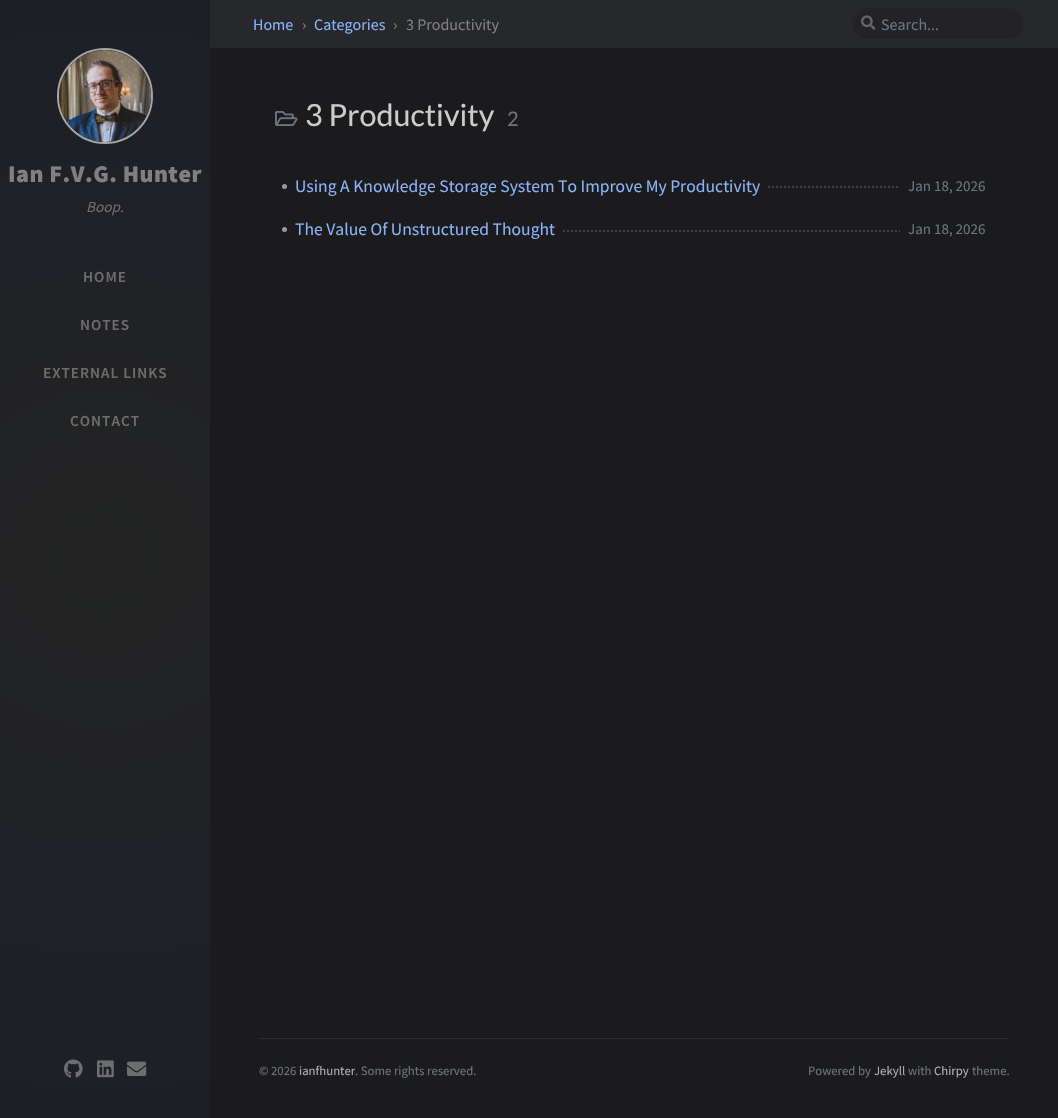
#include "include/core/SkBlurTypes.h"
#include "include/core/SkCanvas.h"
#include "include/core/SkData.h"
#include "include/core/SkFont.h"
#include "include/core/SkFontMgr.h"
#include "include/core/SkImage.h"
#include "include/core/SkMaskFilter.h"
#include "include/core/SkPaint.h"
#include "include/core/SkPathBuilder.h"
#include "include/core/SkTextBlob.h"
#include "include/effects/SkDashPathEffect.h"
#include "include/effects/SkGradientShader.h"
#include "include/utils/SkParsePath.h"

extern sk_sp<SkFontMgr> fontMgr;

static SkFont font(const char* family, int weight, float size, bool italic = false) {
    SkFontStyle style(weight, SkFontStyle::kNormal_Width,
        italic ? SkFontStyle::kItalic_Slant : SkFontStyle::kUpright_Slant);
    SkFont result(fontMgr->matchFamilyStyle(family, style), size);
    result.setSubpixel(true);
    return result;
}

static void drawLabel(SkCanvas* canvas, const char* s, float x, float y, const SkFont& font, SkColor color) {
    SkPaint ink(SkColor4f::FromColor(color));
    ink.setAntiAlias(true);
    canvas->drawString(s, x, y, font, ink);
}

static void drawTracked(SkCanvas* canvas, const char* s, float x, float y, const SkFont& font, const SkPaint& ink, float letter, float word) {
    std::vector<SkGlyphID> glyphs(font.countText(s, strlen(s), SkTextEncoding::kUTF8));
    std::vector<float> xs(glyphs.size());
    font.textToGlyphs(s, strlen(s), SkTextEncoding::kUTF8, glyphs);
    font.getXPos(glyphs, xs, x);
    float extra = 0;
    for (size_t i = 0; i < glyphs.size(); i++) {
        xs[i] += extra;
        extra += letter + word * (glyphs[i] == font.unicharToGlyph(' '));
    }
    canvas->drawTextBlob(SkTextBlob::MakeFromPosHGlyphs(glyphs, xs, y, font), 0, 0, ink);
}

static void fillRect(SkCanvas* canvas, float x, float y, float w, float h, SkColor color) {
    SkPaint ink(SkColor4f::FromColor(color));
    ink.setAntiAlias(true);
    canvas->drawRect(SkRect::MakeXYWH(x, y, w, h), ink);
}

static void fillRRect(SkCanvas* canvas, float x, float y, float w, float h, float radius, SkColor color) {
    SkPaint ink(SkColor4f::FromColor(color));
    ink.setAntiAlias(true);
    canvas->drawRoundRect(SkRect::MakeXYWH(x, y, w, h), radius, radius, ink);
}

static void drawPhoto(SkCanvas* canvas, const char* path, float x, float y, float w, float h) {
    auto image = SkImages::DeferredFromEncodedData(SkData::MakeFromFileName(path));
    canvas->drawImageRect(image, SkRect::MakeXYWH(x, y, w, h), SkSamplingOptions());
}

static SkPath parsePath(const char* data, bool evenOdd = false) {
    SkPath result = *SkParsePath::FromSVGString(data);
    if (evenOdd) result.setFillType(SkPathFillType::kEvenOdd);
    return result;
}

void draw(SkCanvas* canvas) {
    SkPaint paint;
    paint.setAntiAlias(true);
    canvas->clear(0xFF1B1B1E);
    fillRect(canvas, 210, 0, 848, 47, 0xFF27282B);
    fillRect(canvas, 210, 47, 848, 1, 0xFF242528);
    SkFont font1 = font("Source Sans Pro", 400, 16);
    drawLabel(canvas, "Home", 253, 30, font1, 0xFF8AB4F8);
    drawLabel(canvas, "›", 302, 30, font1, 0xFF808080);
    drawLabel(canvas, "Categories", 314, 30, font1, 0xFF8AB4F8);
    drawLabel(canvas, "›", 393, 30, font1, 0xFF808080);
    drawLabel(canvas, "3 Productivity", 406, 30, font1, 0xFF808080);
    fillRRect(canvas, 852, 8, 171, 31, 15.5f, 0xFF222227);
    drawPhoto(canvas, "assets/img1.png", 861, 15, 15, 15);
    drawLabel(canvas, "Search...", 881, 30, font1, 0xFF6C757D);
    {
        const SkColor colors[] = {0xFF242424, 0xFF1D1F27};
        const float stops[] = {0, 1};
        paint.setShader(SkGradientShader::MakeRadial({105, 559}, 569, colors, stops, 2, SkTileMode::kClamp));
        paint.setAlpha(255);
    }
    canvas->drawRect(SkRect::MakeXYWH(0, 0, 210, 1118), paint);
    paint.setStroke(true);
    paint.setStrokeWidth(2);
    paint.setShader(nullptr);
    paint.setColor(0xFFA5A5A7);
    canvas->drawCircle(105, 96, 47, paint);
    drawPhoto(canvas, "assets/img2.png", 59, 50, 92, 92);
    SkFont font2 = font("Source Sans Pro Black", 900, 24);
    paint.setStroke(false);
    paint.setColor(0xFF808080);
    drawTracked(canvas, "Ian F.V.G. Hunter", 8, 182, font2, paint, 0.5f, 0);
    SkFont font3 = font("Source Sans Pro", 400, 15.25f, true);
    drawLabel(canvas, "Boop.", 86, 212, font3, 0xFF6D6C6B);
    SkFont font4 = font("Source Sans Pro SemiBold", 600, 15.25f);
    paint.setColor(0xFF6D6C6B);
    drawTracked(canvas, "HOME", 83, 282, font4, paint, 1, 0);
    drawTracked(canvas, "NOTES", 80, 330, font4, paint, 1, 0);
    drawTracked(canvas, "EXTERNAL LINKS", 43, 378, font4, paint, 1, 0);
    drawTracked(canvas, "CONTACT", 70, 426, font4, paint, 1, 0);
    drawPhoto(canvas, "assets/img3.png", 64, 1059, 19, 19);
    drawPhoto(canvas, "assets/img4.png", 97, 1060, 17, 18);
    drawPhoto(canvas, "assets/img5.png", 127, 1061, 20, 15);
    drawPhoto(canvas, "assets/img6.png", 275, 111, 23, 15);
    SkFont font5 = font("Lato", 400, 30.5f);
    drawLabel(canvas, "3 Productivity", 305, 126, font5, 0xFFCCCCCC);
    SkFont font6 = font("Lato", 400, 20);
    drawLabel(canvas, "2", 507, 126, font6, 0xFF6C757D);
    paint.setColor(0xFF999999);
    canvas->drawCircle(284.5f, 186.5f, 2.5f, paint);
    SkFont font7 = font("Source Sans Pro", 400, 17.6f);
    drawLabel(canvas, "Using A Knowledge Storage System To Improve My Productivity", 295, 192, font7, 0xFF8AB4F8);
    paint.setStroke(true);
    paint.setColor(0xFF3F4144);
    paint.setPathEffect(SkDashPathEffect::Make({{2, 2}}, 0));
    canvas->drawPath(parsePath("M768 187H900"), paint);
    paint.setPathEffect(nullptr);
    SkFont font8 = font("Source Sans Pro", 400, 15);
    drawLabel(canvas, "Jan 18, 2026", 908, 191, font8, 0xFF6C757D);
    paint.setStroke(false);
    paint.setColor(0xFF999999);
    canvas->drawCircle(284.5f, 229.5f, 2.5f, paint);
    drawLabel(canvas, "The Value Of Unstructured Thought", 295, 235, font7, 0xFF8AB4F8);
    paint.setStroke(true);
    paint.setColor(0xFF3F4144);
    paint.setPathEffect(SkDashPathEffect::Make({{2, 2}}, 0));
    canvas->drawPath(parsePath("M563 231H900"), paint);
    paint.setPathEffect(nullptr);
    drawLabel(canvas, "Jan 18, 2026", 908, 234, font8, 0xFF6C757D);
    fillRect(canvas, 259, 1038, 750, 1, 0xFF2C2D2D);
    SkFont font9 = font("Source Sans Pro", 400, 12.75f);
    drawLabel(canvas, "© 2026", 259, 1075, font9, 0xFF6C757D);
    drawLabel(canvas, "ianfhunter", 299, 1075, font9, 0xFFAFB0B1);
    drawLabel(canvas, ". Some rights reserved.", 355, 1075, font9, 0xFF6C757D);
    drawLabel(canvas, "Powered by", 808, 1075, font9, 0xFF6C757D);
    drawLabel(canvas, "Jekyll", 874, 1075, font9, 0xFFAFB0B1);
    drawLabel(canvas, "with", 908, 1075, font9, 0xFF6C757D);
    drawLabel(canvas, "Chirpy", 934, 1075, font9, 0xFFAFB0B1);
    drawLabel(canvas, "theme.", 972, 1075, font9, 0xFF6C757D);
}
